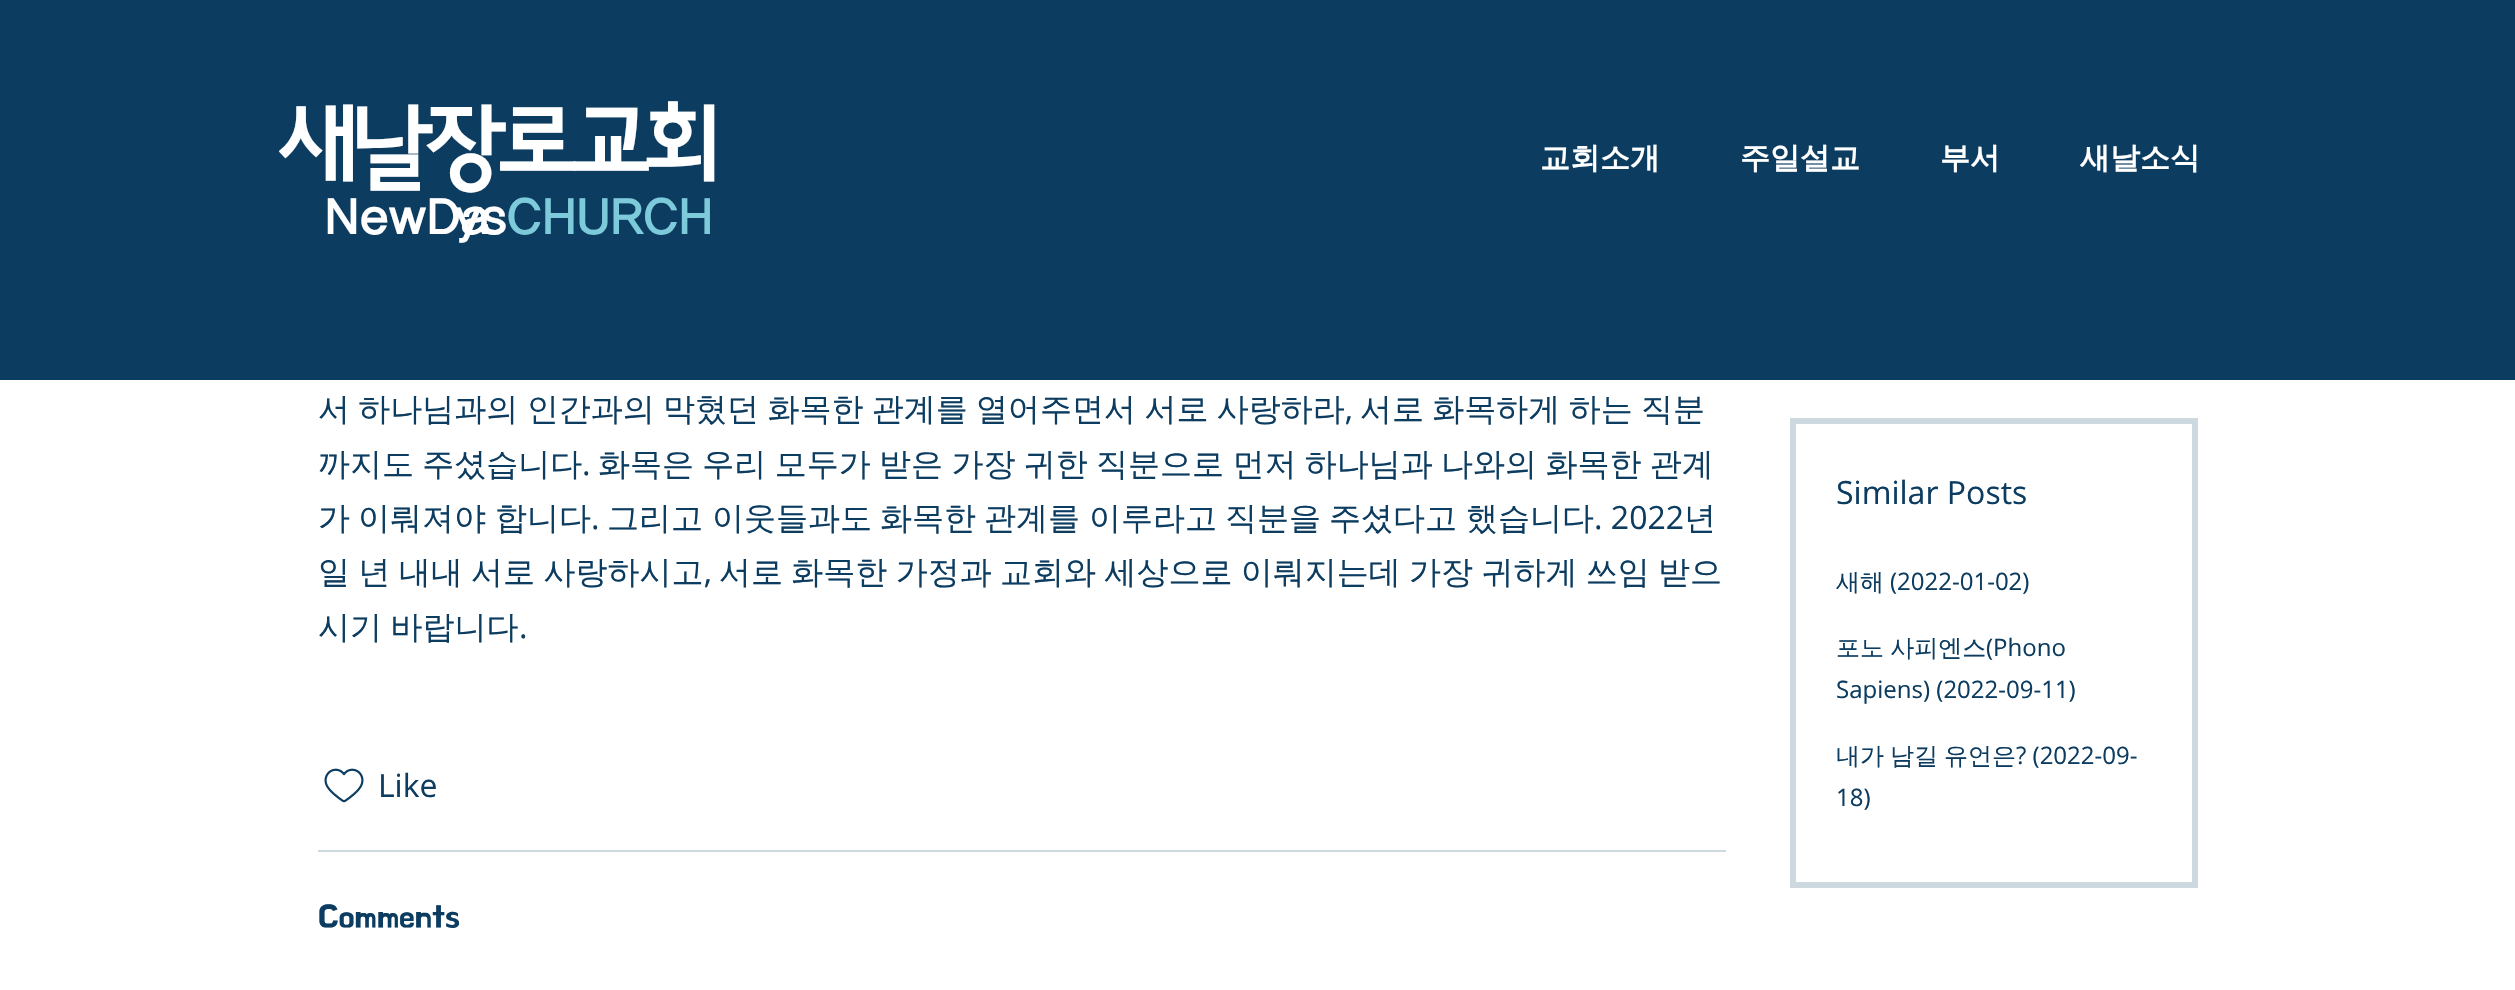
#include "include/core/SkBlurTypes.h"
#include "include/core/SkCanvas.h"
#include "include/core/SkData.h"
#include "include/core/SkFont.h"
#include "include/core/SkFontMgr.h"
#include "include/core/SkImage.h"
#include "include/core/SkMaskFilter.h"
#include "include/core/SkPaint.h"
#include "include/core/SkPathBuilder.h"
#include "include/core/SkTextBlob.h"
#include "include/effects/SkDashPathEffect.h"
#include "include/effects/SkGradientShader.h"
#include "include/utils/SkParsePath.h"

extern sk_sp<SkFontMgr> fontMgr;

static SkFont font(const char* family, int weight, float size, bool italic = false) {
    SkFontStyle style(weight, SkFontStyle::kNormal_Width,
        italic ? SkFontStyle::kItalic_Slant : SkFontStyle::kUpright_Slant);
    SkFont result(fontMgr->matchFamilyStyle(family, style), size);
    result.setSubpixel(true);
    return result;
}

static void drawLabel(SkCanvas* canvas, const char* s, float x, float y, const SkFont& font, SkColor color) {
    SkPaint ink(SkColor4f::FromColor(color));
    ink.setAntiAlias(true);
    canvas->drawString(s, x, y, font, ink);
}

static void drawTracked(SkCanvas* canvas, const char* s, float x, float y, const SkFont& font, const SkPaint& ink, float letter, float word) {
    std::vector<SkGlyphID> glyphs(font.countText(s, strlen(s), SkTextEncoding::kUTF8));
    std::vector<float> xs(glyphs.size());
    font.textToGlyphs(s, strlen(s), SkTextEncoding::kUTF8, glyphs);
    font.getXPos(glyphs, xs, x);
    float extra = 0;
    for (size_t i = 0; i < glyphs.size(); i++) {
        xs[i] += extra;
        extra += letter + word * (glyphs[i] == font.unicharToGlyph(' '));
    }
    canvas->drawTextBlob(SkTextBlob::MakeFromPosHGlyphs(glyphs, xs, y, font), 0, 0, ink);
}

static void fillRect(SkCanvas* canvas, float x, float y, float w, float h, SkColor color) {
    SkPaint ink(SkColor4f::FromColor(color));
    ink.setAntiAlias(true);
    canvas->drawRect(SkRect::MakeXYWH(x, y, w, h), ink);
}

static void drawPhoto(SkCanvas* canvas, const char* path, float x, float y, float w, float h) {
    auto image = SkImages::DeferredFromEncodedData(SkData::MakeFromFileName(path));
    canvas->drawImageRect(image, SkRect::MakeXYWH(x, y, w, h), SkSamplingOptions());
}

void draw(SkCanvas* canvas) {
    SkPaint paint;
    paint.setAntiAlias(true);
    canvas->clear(0xFFFFFFFF);
    fillRect(canvas, 0, 0, 2515, 380, 0xFF0C3C60);
    SkFont font1 = font("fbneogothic", 700, 92);
    paint.setColor(0xFFFFFFFF);
    drawTracked(canvas, "새날장로교회", 278, 180, font1, paint, -9.25f, 0);
    SkFont font2 = font("fbneogothic", 700, 50);
    drawTracked(canvas, "NewDa", 323, 236, font2, paint, -2.5f, 0);
    paint.setColor(0xFF7DCADA);
    drawTracked(canvas, "CHURCH", 505, 236, font2, paint, -2.5f, 0);
    paint.setColor(0xFFFFFFFF);
    drawTracked(canvas, "ys", 453, 236, font2, paint, -2.5f, 0);
    SkFont font3 = font("WenQuanYi Zen Hei", 700, 30);
    drawLabel(canvas, "교회소개", 1540, 168, font3, 0xFFFFFFFF);
    drawLabel(canvas, "주일설교", 1740, 168, font3, 0xFFFFFFFF);
    drawLabel(canvas, "부서", 1940, 168, font3, 0xFFFFFFFF);
    drawLabel(canvas, "새날소식", 2080, 168, font3, 0xFFFFFFFF);
    SkFont font4 = font("WenQuanYi Zen Hei", 500, 32);
    paint.setColor(0xFF0C3C60);
    drawTracked(canvas, "서 하나님과의 인간과의 막혔던 화목한 관계를 열어주면서 서로 사랑하라", 318, 420, font4, paint, 0, -1.25f);
    SkFont font5 = font("Open Sans", 400, 32);
    drawLabel(canvas, ",", 1345, 420, font5, 0xFF0C3C60);
    drawTracked(canvas, "서로 화목하게 하는 직분", 1360, 420, font4, paint, 0, -1.25f);
    drawTracked(canvas, "까지도 주셨습니다", 318, 475, font4, paint, 0, -1.25f);
    drawLabel(canvas, ".", 582, 475, font5, 0xFF0C3C60);
    drawTracked(canvas, "화목은 우리 모두가 받은 가장 귀한 직분으로 먼저 하나님과 나와의 화목한 관계", 598, 475, font4, paint, 0, -1.25f);
    drawLabel(canvas, "가", 318, 529, font4, 0xFF0C3C60);
    drawLabel(canvas, "이뤄져야", 358, 529, font4, 0xFF0C3C60);
    drawLabel(canvas, "합니다", 495, 529, font4, 0xFF0C3C60);
    drawLabel(canvas, ".", 591, 529, font5, 0xFF0C3C60);
    drawLabel(canvas, "그리고", 607, 529, font4, 0xFF0C3C60);
    drawLabel(canvas, "이웃들과도", 712, 529, font4, 0xFF0C3C60);
    drawLabel(canvas, "화목한", 880, 529, font4, 0xFF0C3C60);
    drawLabel(canvas, "관계를", 984, 529, font4, 0xFF0C3C60);
    drawLabel(canvas, "이루라고", 1089, 529, font4, 0xFF0C3C60);
    drawLabel(canvas, "직분을", 1225, 529, font4, 0xFF0C3C60);
    drawLabel(canvas, "주셨다고", 1329, 529, font4, 0xFF0C3C60);
    drawLabel(canvas, "했습니다", 1466, 529, font4, 0xFF0C3C60);
    drawLabel(canvas, ". 2022", 1594, 529, font5, 0xFF0C3C60);
    drawLabel(canvas, "년", 1684, 529, font4, 0xFF0C3C60);
    drawTracked(canvas, "일 년 내내 서로 사랑하시고", 318, 583, font4, paint, 0, -1.25f);
    drawLabel(canvas, ",", 704, 583, font5, 0xFF0C3C60);
    drawTracked(canvas, "서로 화목한 가정과 교회와 세상으로 이뤄지는데 가장 귀하게 쓰임 받으", 719, 583, font4, paint, 0, -1.25f);
    drawTracked(canvas, "시기 바랍니다", 318, 638, font4, paint, 0, -1);
    drawLabel(canvas, ".", 519, 638, font5, 0xFF0C3C60);
    drawPhoto(canvas, "assets/img1.png", 324, 768, 40, 35);
    drawLabel(canvas, "Like", 378, 797, font5, 0xFF0C3C60);
    fillRect(canvas, 318, 850, 1408, 2, 0xFFCED8DF);
    SkFont font6 = font("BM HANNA", 400, 32);
    drawLabel(canvas, "Comments", 318, 926, font6, 0xFF0C3C60);
    paint.setStroke(true);
    paint.setStrokeWidth(6);
    paint.setColor(0xFFCED8DF);
    canvas->drawRect(SkRect::MakeXYWH(1793, 421, 402, 464), paint);
    drawLabel(canvas, "Similar Posts", 1836, 504, font5, 0xFF0C3C60);
    SkFont font7 = font("WenQuanYi Zen Hei", 500, 24);
    drawLabel(canvas, "새해", 1836, 590, font7, 0xFF0C3C60);
    SkFont font8 = font("Open Sans", 400, 24);
    drawLabel(canvas, "(2022-01-02)", 1890, 590, font8, 0xFF0C3C60);
    paint.setStroke(false);
    paint.setColor(0xFF0C3C60);
    drawTracked(canvas, "포노 사피엔스", 1836, 656, font7, paint, 0, -1);
    drawLabel(canvas, "(Phono", 1986, 656, font8, 0xFF0C3C60);
    drawLabel(canvas, "Sapiens) (2022-09-11)", 1836, 698, font8, 0xFF0C3C60);
    drawLabel(canvas, "내가", 1836, 764, font7, 0xFF0C3C60);
    drawLabel(canvas, "남길", 1890, 764, font7, 0xFF0C3C60);
    drawLabel(canvas, "유언은", 1944, 764, font7, 0xFF0C3C60);
    drawLabel(canvas, "? (2022-09-", 2016, 764, font8, 0xFF0C3C60);
    drawLabel(canvas, "18)", 1836, 806, font8, 0xFF0C3C60);
}
